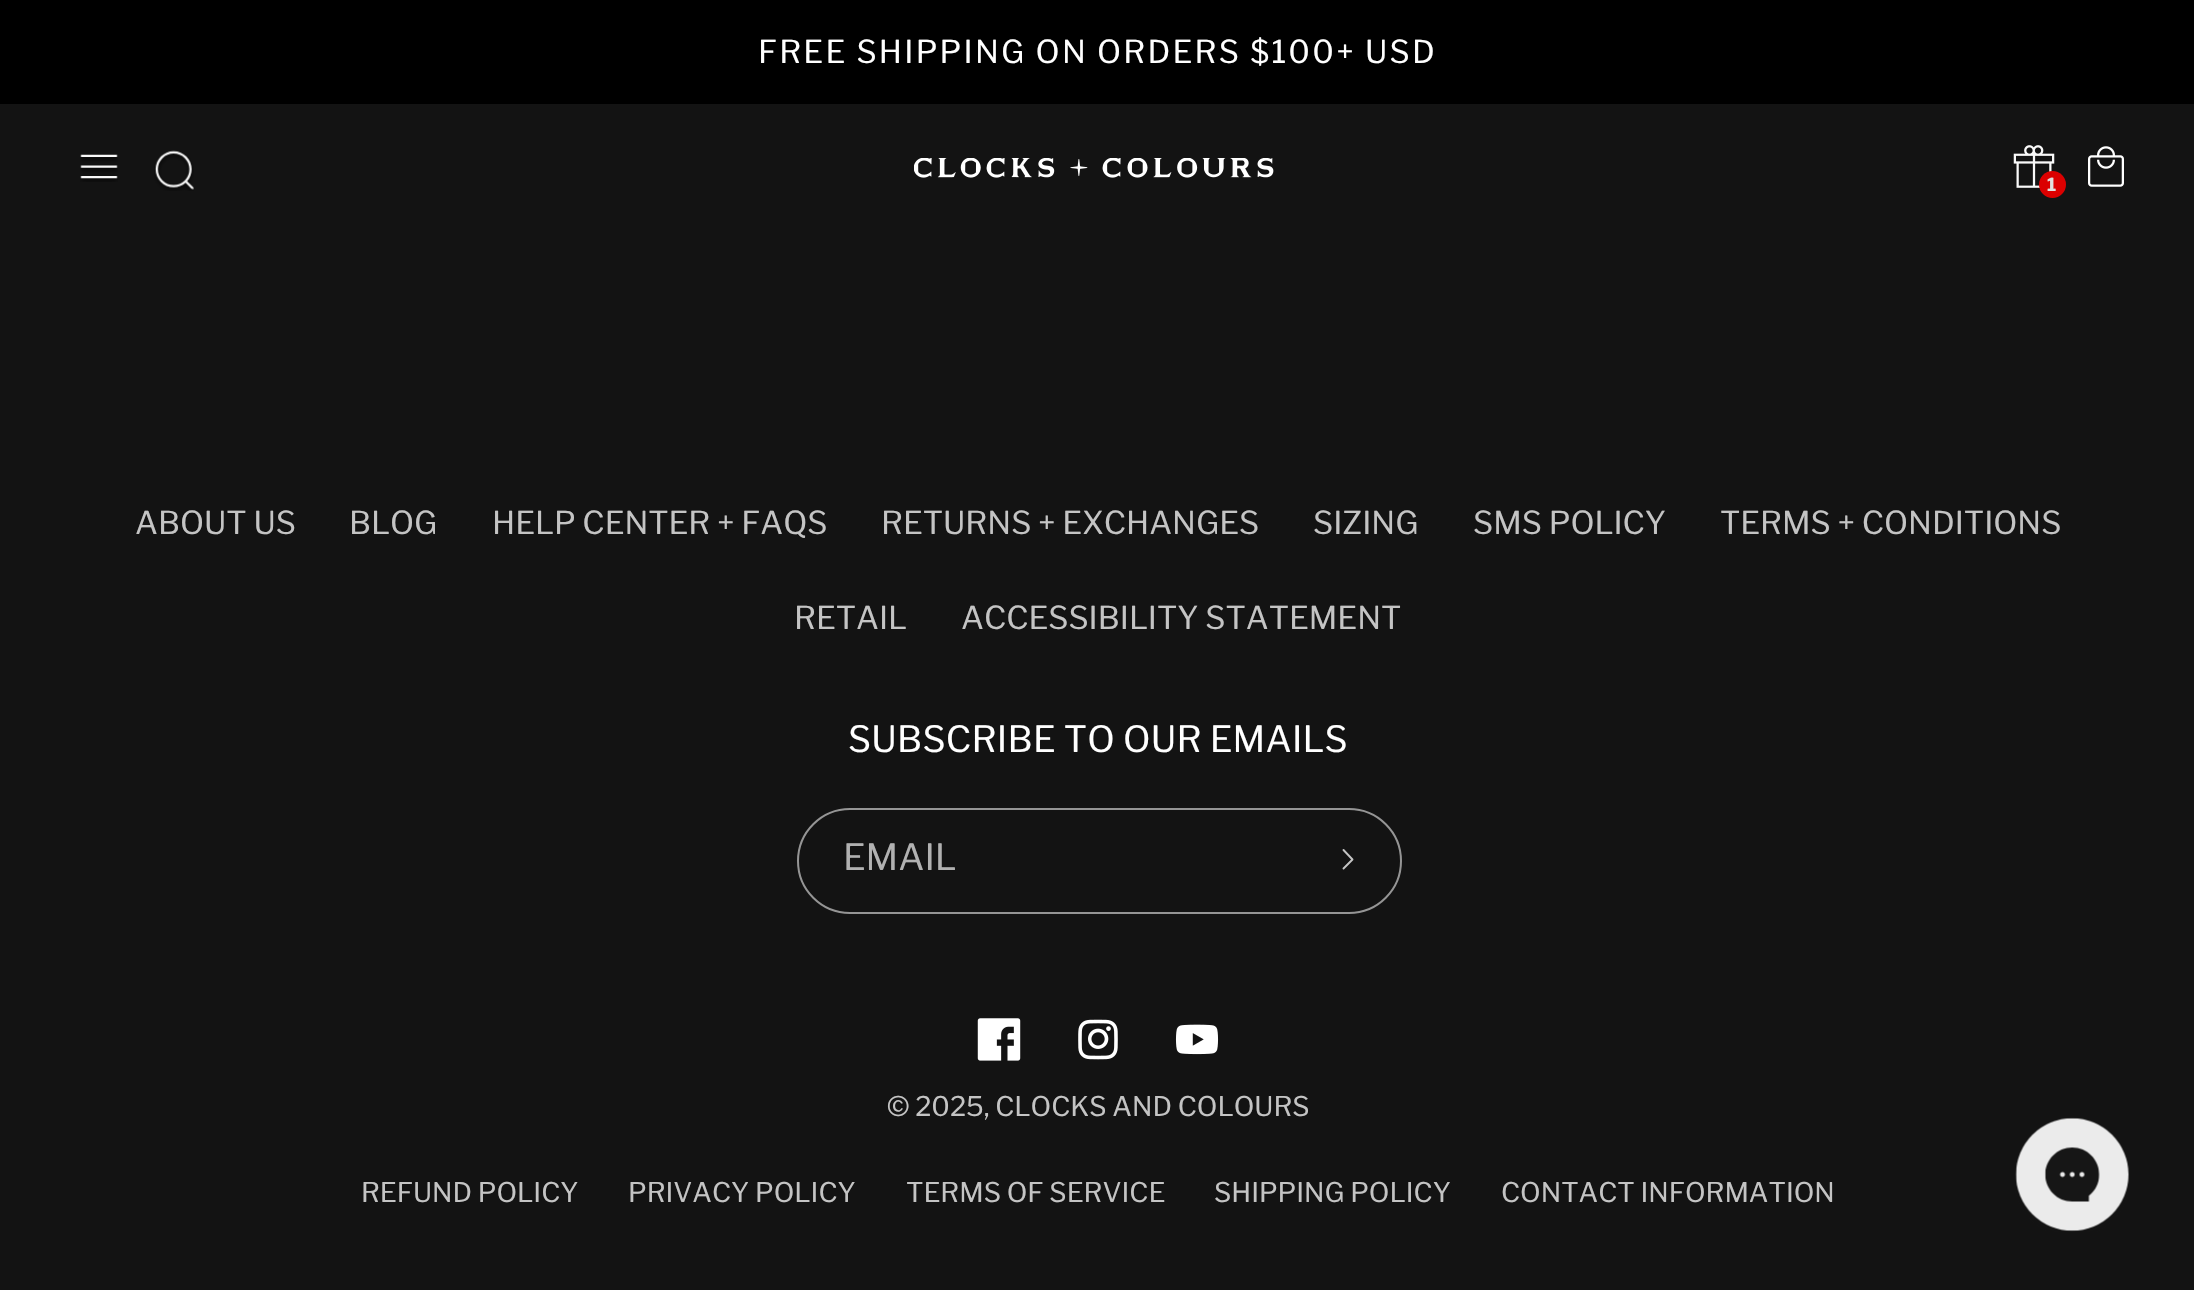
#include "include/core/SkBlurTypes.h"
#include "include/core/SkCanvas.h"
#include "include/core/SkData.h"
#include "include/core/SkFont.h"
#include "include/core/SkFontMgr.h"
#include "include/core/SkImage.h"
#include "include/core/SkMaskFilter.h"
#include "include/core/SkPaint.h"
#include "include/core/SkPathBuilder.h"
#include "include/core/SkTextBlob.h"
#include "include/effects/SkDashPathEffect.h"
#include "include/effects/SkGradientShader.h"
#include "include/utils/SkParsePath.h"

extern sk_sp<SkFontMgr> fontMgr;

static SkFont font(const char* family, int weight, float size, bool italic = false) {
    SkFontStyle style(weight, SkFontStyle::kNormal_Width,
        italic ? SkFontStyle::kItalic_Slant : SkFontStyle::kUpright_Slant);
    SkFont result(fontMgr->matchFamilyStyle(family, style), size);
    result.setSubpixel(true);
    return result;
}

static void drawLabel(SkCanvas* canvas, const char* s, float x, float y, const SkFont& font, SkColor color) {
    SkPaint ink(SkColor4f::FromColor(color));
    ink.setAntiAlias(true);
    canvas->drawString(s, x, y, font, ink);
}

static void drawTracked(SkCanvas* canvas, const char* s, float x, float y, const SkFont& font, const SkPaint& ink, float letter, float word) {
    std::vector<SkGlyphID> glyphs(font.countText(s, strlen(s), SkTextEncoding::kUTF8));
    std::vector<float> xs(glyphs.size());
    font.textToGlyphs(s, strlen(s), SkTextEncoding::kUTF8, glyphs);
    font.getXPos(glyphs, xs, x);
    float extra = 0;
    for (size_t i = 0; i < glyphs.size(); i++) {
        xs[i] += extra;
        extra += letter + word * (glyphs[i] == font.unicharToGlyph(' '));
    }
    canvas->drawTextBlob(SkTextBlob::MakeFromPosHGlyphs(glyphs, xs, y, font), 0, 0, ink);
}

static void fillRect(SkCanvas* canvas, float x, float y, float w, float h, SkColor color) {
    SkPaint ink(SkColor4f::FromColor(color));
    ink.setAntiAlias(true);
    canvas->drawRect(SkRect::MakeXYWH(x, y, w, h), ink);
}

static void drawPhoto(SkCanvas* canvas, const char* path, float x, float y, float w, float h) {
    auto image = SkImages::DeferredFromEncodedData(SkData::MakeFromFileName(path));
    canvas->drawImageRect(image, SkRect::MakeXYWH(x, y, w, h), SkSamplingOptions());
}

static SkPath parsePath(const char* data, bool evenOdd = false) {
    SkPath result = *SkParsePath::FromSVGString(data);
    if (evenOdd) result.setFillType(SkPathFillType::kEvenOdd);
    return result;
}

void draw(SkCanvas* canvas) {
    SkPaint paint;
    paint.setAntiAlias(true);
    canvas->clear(0xFF131313);
    fillRect(canvas, 0, 0, 2194, 104, 0xFF000000);
    SkFont font1 = font("Libre Franklin", 400, 31.5f);
    paint.setColor(0xFFFFFFFF);
    drawTracked(canvas, "FREE SHIPPING ON ORDERS $100+ USD", 758, 63, font1, paint, 2.25f, 0);
    drawPhoto(canvas, "assets/img1.png", 80, 154, 38, 28);
    drawPhoto(canvas, "assets/img2.png", 154, 150, 40, 41);
    drawPhoto(canvas, "assets/img3.png", 914, 158, 360, 20);
    drawPhoto(canvas, "assets/img4.png", 2013, 145, 42, 43);
    paint.setColor(0xFFDB0000);
    canvas->drawCircle(2052.5f, 184.5f, 13.5f, paint);
    SkFont font2 = font("Libre Franklin", 700, 18);
    drawLabel(canvas, "1", 2047, 191, font2, 0xFFE1E0DF);
    drawPhoto(canvas, "assets/img5.png", 2088, 146, 36, 41);
    drawLabel(canvas, "ABOUT US", 135, 534, font1, 0xFFC4C4C4);
    drawLabel(canvas, "BLOG", 349, 534, font1, 0xFFC4C4C4);
    drawLabel(canvas, "HELP CENTER + FAQS", 492, 534, font1, 0xFFC4C4C4);
    drawLabel(canvas, "RETURNS + EXCHANGES", 881, 534, font1, 0xFFC4C4C4);
    drawLabel(canvas, "SIZING", 1313, 534, font1, 0xFFC4C4C4);
    drawLabel(canvas, "SMS POLICY", 1473, 534, font1, 0xFFC4C4C4);
    drawLabel(canvas, "TERMS + CONDITIONS", 1720, 534, font1, 0xFFC4C4C4);
    drawLabel(canvas, "RETAIL", 794, 629, font1, 0xFFC4C4C4);
    drawLabel(canvas, "ACCESSIBILITY STATEMENT", 961, 629, font1, 0xFFC4C4C4);
    SkFont font3 = font("Libre Franklin", 400, 36);
    paint.setColor(0xFFFFFFFF);
    drawTracked(canvas, "SUBSCRIBE TO OUR EMAILS", 848, 752, font3, paint, 0.25f, 0);
    paint.setStroke(true);
    paint.setStrokeWidth(2);
    paint.setColor(0xFF959595);
    canvas->drawRoundRect(SkRect::MakeXYWH(798, 809, 603, 104), 52, 52, paint);
    drawLabel(canvas, "EMAIL", 843, 870, font3, 0xFFB1B1B1);
    paint.setStrokeWidth(1.9f);
    paint.setStrokeCap(SkPaint::kRound_Cap);
    paint.setStrokeJoin(SkPaint::kRound_Join);
    paint.setColor(0xFFC4C4C4);
    canvas->drawPath(parsePath("M1343.5 850L1352.5 859.5L1343.5 868.5"), paint);
    drawPhoto(canvas, "assets/img6.png", 977, 1018, 44, 43);
    drawPhoto(canvas, "assets/img7.png", 1078, 1019, 40, 41);
    drawPhoto(canvas, "assets/img8.png", 1175, 1024, 44, 31);
    SkFont font4 = font("Libre Franklin", 400, 27);
    drawLabel(canvas, "© 2025, CLOCKS AND COLOURS", 887, 1116, font4, 0xFFC4C4C4);
    drawLabel(canvas, "REFUND POLICY", 361, 1202, font4, 0xFFC4C4C4);
    drawLabel(canvas, "PRIVACY POLICY", 628, 1202, font4, 0xFFC4C4C4);
    drawLabel(canvas, "TERMS OF SERVICE", 906, 1202, font4, 0xFFC4C4C4);
    drawLabel(canvas, "SHIPPING POLICY", 1214, 1202, font4, 0xFFC4C4C4);
    drawLabel(canvas, "CONTACT INFORMATION", 1501, 1202, font4, 0xFFC4C4C4);
    drawPhoto(canvas, "assets/img9.png", 2015, 1117, 114, 115);
}
